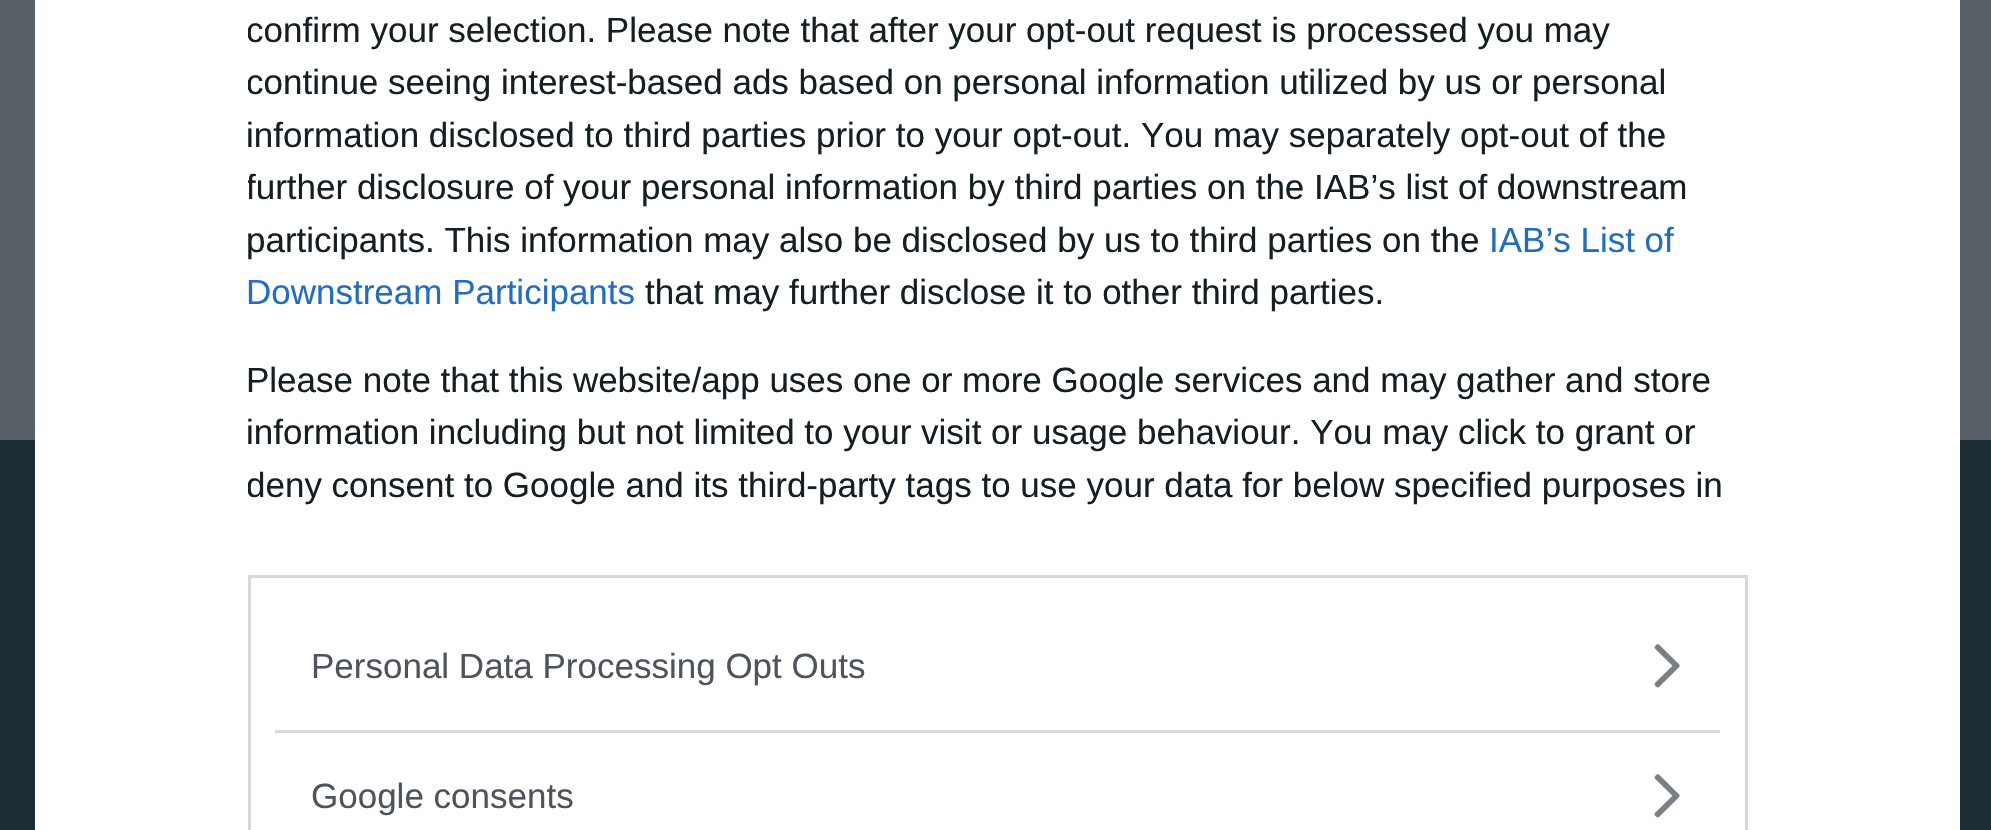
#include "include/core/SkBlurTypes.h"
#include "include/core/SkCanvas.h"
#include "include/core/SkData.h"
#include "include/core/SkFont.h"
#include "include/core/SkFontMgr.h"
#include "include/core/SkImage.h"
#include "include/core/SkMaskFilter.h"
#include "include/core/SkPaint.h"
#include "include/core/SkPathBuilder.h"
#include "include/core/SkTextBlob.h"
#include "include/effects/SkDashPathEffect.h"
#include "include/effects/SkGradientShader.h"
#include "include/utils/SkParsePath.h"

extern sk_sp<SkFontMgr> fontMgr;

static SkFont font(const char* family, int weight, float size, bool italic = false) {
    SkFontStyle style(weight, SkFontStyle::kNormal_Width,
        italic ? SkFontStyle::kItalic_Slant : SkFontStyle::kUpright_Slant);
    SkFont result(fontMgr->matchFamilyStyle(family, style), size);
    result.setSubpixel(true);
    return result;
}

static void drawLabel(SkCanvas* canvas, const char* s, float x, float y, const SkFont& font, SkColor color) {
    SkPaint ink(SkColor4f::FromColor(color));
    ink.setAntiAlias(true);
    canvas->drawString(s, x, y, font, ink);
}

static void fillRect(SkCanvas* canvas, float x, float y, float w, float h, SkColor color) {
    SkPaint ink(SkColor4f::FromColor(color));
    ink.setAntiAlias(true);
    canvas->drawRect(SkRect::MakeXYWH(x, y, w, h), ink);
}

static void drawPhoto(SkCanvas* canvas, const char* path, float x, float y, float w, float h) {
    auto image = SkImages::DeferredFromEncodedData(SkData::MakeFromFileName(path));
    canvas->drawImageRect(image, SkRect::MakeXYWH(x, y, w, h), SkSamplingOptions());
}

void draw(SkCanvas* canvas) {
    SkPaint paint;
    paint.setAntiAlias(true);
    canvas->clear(0xFF595F67);
    fillRect(canvas, 0, 440, 1991, 390, 0xFF1A2D33);
    fillRect(canvas, 35, 0, 1925, 830, 0xFFFFFFFF);
    canvas->save();
    canvas->clipRect(SkRect::MakeXYWH(248, 0, 1500, 538));
    SkFont font1 = font("Liberation Sans", 400, 35);
    drawLabel(canvas, "confirm your selection. Please note that after your opt-out request is processed you may", 246, 42, font1, 0xFF141E23);
    drawLabel(canvas, "continue seeing interest-based ads based on personal information utilized by us or personal", 246, 94, font1, 0xFF141E23);
    canvas->restore();
    drawLabel(canvas, "information disclosed to third parties prior to your opt-out. You may separately opt-out of the", 246, 147, font1, 0xFF141E23);
    canvas->save();
    canvas->clipRect(SkRect::MakeXYWH(248, 0, 1500, 538));
    drawLabel(canvas, "further disclosure of your personal information by third parties on the IAB’s list of downstream", 246, 199, font1, 0xFF141E23);
    canvas->restore();
    drawLabel(canvas, "participants. This information may also be disclosed by us to third parties on the", 246, 252, font1, 0xFF141E23);
    drawLabel(canvas, "IAB’s List of", 1489, 252, font1, 0xFF206DC5);
    drawLabel(canvas, "Downstream Participants", 246, 304, font1, 0xFF206DC5);
    drawLabel(canvas, "that may further disclose it to other third parties.", 645, 304, font1, 0xFF141E23);
    drawLabel(canvas, "Please note that this website/app uses one or more Google services and may gather and store", 246, 392, font1, 0xFF141E23);
    drawLabel(canvas, "information including but not limited to your visit or usage behaviour. You may click to grant or", 246, 444, font1, 0xFF141E23);
    canvas->save();
    canvas->clipRect(SkRect::MakeXYWH(248, 0, 1500, 538));
    drawLabel(canvas, "deny consent to Google and its third-party tags to use your data for below specified purposes in", 246, 497, font1, 0xFF141E23);
    canvas->restore();
    paint.setStroke(true);
    paint.setStrokeWidth(3);
    paint.setColor(0xFFD8D8D8);
    canvas->drawRect(SkRect::MakeXYWH(249.5f, 576.5f, 1497, 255), paint);
    fillRect(canvas, 275, 730, 1445, 3, 0xFFD8D8D8);
    drawLabel(canvas, "Personal Data Processing Opt Outs", 311, 678, font1, 0xFF4D545D);
    drawPhoto(canvas, "assets/img1.png", 1654, 644, 26, 44);
    drawLabel(canvas, "Google consents", 311, 808, font1, 0xFF4D545D);
    drawPhoto(canvas, "assets/img1.png", 1654, 774, 26, 44);
}
